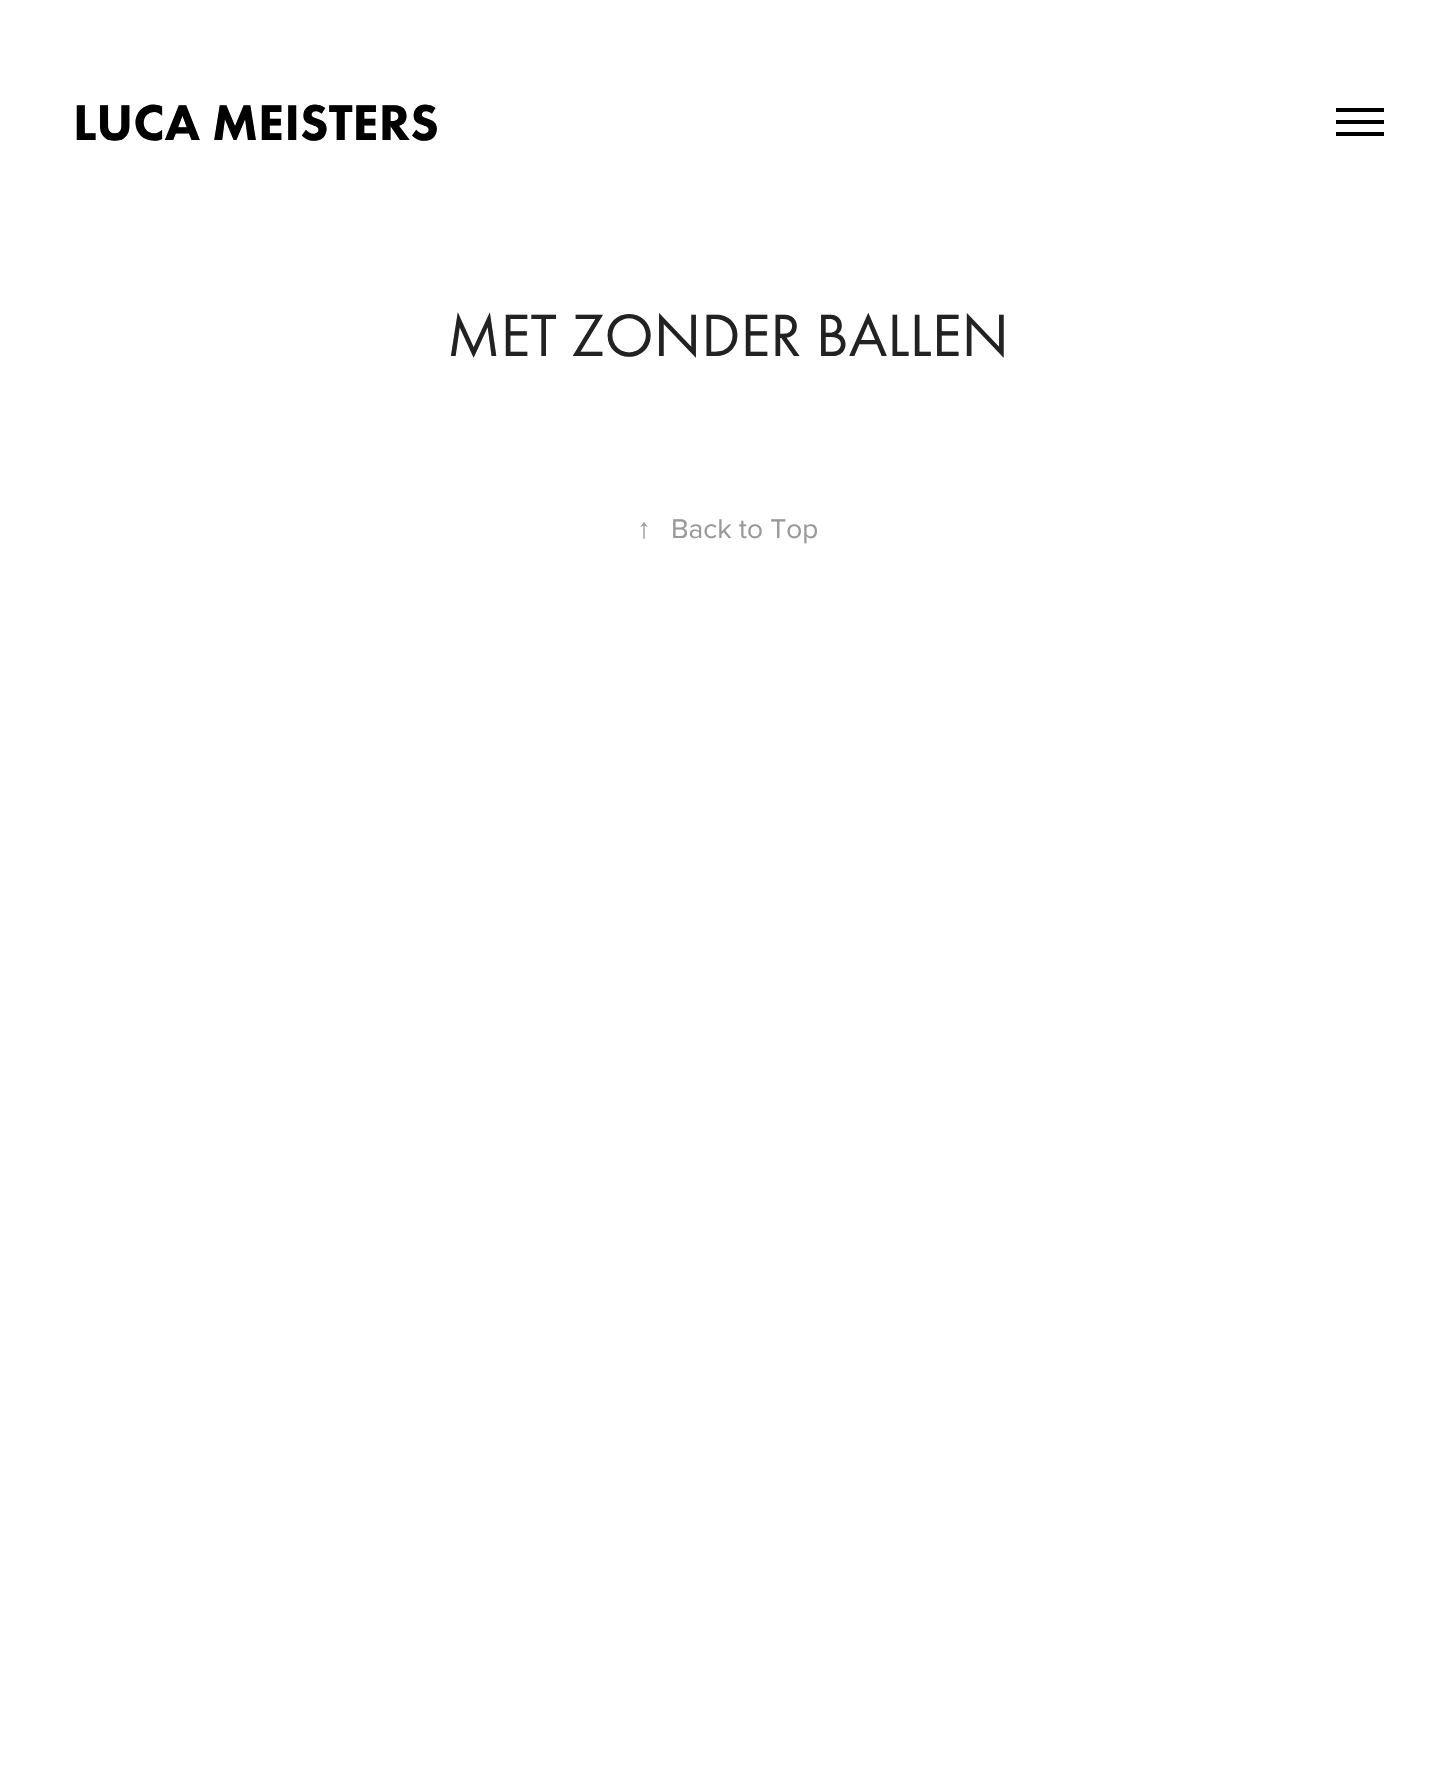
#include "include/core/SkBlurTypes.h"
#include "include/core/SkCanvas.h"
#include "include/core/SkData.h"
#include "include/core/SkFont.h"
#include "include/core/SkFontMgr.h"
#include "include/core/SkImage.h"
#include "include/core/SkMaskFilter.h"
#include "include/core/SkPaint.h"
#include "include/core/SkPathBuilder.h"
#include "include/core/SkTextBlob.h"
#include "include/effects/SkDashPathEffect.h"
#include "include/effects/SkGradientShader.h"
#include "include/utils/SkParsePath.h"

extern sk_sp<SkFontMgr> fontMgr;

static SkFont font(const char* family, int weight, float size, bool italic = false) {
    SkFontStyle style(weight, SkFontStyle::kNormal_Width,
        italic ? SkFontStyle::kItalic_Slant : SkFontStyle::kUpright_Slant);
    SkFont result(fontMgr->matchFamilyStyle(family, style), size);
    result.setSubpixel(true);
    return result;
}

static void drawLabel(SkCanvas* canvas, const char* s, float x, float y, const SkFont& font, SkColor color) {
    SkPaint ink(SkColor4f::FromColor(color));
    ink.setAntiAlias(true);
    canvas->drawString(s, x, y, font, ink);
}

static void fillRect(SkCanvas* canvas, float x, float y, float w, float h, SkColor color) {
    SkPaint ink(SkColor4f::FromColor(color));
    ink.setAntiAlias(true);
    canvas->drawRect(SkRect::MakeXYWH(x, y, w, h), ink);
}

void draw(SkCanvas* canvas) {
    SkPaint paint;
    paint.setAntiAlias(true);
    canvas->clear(0xFFFFFFFF);
    SkFont font1 = font("Futura PT", 900, 52);
    drawLabel(canvas, "LUCA MEISTERS", 73, 140, font1, 0xFF000000);
    fillRect(canvas, 1336, 108, 48, 4, 0xFF000000);
    fillRect(canvas, 1336, 120, 48, 4, 0xFF000000);
    fillRect(canvas, 1336, 132, 48, 4, 0xFF000000);
    SkFont font2 = font("Futura PT", 400, 62);
    drawLabel(canvas, "MET ZONDER BALLEN", 447, 356, font2, 0xFF222222);
    SkFont font3 = font("Liberation Serif", 400, 28);
    drawLabel(canvas, "↑", 637, 538, font3, 0xFF999999);
    SkFont font4 = font("Proxima Nova", 400, 28);
    drawLabel(canvas, "Back to Top", 671, 538, font4, 0xFF999999);
}
